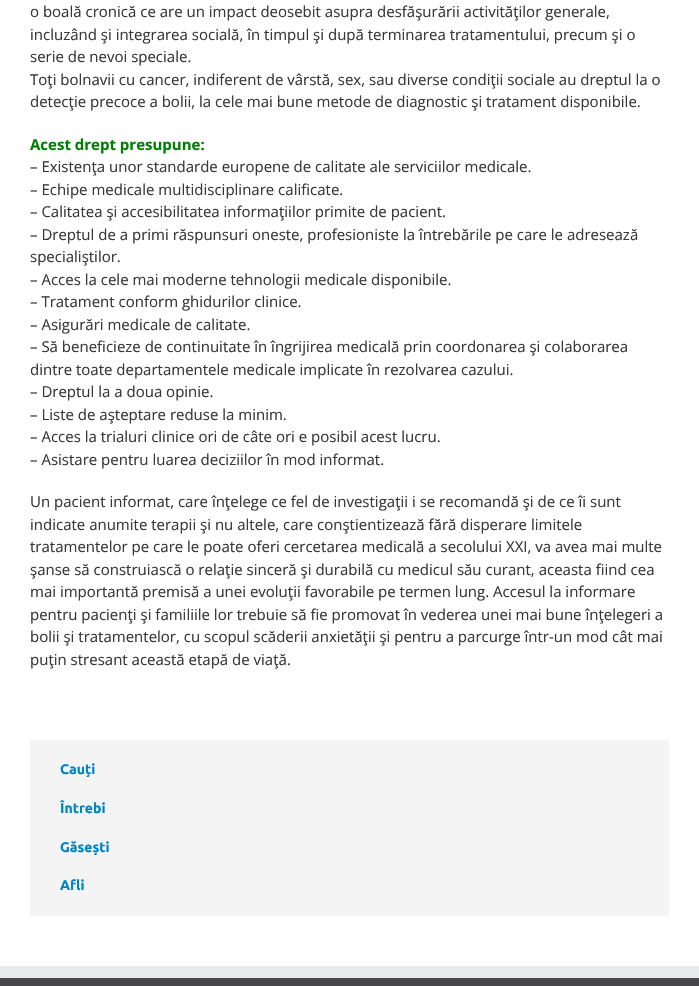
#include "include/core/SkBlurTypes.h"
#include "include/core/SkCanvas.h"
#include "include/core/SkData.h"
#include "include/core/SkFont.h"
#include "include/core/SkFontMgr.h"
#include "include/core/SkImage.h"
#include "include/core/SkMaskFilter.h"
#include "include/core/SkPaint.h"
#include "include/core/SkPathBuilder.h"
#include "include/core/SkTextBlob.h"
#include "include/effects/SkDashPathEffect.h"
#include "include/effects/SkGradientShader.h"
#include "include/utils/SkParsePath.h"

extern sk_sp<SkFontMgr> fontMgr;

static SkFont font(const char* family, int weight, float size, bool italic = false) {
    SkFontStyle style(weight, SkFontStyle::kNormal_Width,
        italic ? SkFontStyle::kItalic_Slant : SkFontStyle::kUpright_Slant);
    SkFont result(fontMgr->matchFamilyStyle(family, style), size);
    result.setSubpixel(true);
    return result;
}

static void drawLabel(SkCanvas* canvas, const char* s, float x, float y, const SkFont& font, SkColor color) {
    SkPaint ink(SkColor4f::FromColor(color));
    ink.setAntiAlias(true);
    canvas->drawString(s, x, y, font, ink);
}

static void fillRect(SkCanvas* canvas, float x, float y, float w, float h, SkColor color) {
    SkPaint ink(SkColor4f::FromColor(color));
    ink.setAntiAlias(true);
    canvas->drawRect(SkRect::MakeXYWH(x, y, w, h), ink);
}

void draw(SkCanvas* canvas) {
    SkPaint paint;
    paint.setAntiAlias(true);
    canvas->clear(0xFFFFFFFF);
    SkFont font1 = font("Open Sans", 400, 15);
    drawLabel(canvas, "o boală cronică ce are un impact deosebit asupra desfăşurării activităţilor generale,", 30, 17, font1, 0xFF383838);
    drawLabel(canvas, "incluzând şi integrarea socială, în timpul şi după terminarea tratamentului, precum şi o", 30, 40, font1, 0xFF383838);
    drawLabel(canvas, "serie de nevoi speciale.", 30, 62, font1, 0xFF383838);
    drawLabel(canvas, "Toţi bolnavii cu cancer, indiferent de vârstă, sex, sau diverse condiţii sociale au dreptul la o", 30, 85, font1, 0xFF383838);
    drawLabel(canvas, "detecţie precoce a bolii, la cele mai bune metode de diagnostic şi tratament disponibile.", 30, 107, font1, 0xFF383838);
    SkFont font2 = font("Open Sans", 700, 15);
    drawLabel(canvas, "Acest drept presupune:", 30, 150, font2, 0xFF008000);
    drawLabel(canvas, "– Existenţa unor standarde europene de calitate ale serviciilor medicale.", 30, 172, font1, 0xFF383838);
    drawLabel(canvas, "– Echipe medicale multidisciplinare calificate.", 30, 195, font1, 0xFF383838);
    drawLabel(canvas, "– Calitatea şi accesibilitatea informaţiilor primite de pacient.", 30, 217, font1, 0xFF383838);
    drawLabel(canvas, "– Dreptul de a primi răspunsuri oneste, profesioniste la întrebările pe care le adresează", 30, 240, font1, 0xFF383838);
    drawLabel(canvas, "specialiştilor.", 30, 262, font1, 0xFF383838);
    drawLabel(canvas, "– Acces la cele mai moderne tehnologii medicale disponibile.", 30, 285, font1, 0xFF383838);
    drawLabel(canvas, "– Tratament conform ghidurilor clinice.", 30, 307, font1, 0xFF383838);
    drawLabel(canvas, "– Asigurări medicale de calitate.", 30, 330, font1, 0xFF383838);
    drawLabel(canvas, "– Să beneficieze de continuitate în îngrijirea medicală prin coordonarea şi colaborarea", 30, 352, font1, 0xFF383838);
    drawLabel(canvas, "dintre toate departamentele medicale implicate în rezolvarea cazului.", 30, 375, font1, 0xFF383838);
    drawLabel(canvas, "– Dreptul la a doua opinie.", 30, 397, font1, 0xFF383838);
    drawLabel(canvas, "– Liste de aşteptare reduse la minim.", 30, 420, font1, 0xFF383838);
    drawLabel(canvas, "– Acces la trialuri clinice ori de câte ori e posibil acest lucru.", 30, 442, font1, 0xFF383838);
    drawLabel(canvas, "– Asistare pentru luarea deciziilor în mod informat.", 30, 465, font1, 0xFF383838);
    drawLabel(canvas, "Un pacient informat, care înţelege ce fel de investigaţii i se recomandă şi de ce îi sunt", 30, 507, font1, 0xFF383838);
    drawLabel(canvas, "indicate anumite terapii şi nu altele, care conştientizează fără disperare limitele", 30, 530, font1, 0xFF383838);
    drawLabel(canvas, "tratamentelor pe care le poate oferi cercetarea medicală a secolului XXI, va avea mai multe", 30, 552, font1, 0xFF383838);
    drawLabel(canvas, "şanse să construiască o relaţie sinceră şi durabilă cu medicul său curant, aceasta fiind cea", 30, 575, font1, 0xFF383838);
    drawLabel(canvas, "mai importantă premisă a unei evoluţii favorabile pe termen lung. Accesul la informare", 30, 597, font1, 0xFF383838);
    drawLabel(canvas, "pentru pacienţi şi familiile lor trebuie să fie promovat în vederea unei mai bune înţelegeri a", 30, 620, font1, 0xFF383838);
    drawLabel(canvas, "bolii şi tratamentelor, cu scopul scăderii anxietăţii şi pentru a parcurge într-un mod cât mai", 30, 642, font1, 0xFF383838);
    drawLabel(canvas, "puţin stresant această etapă de viaţă.", 30, 665, font1, 0xFF383838);
    fillRect(canvas, 30, 740, 639, 176, 0xFFF4F4F4);
    SkFont font3 = font("Ubuntu", 700, 14);
    drawLabel(canvas, "Cauți", 60, 774, font3, 0xFF0186C4);
    drawLabel(canvas, "Întrebi", 60, 813, font3, 0xFF0186C4);
    drawLabel(canvas, "Găsești", 60, 852, font3, 0xFF0186C4);
    drawLabel(canvas, "Afli", 60, 890, font3, 0xFF0186C4);
    fillRect(canvas, 0, 978, 699, 8, 0xFF474747);
    fillRect(canvas, 0, 966, 699, 12, 0xFFE9EAEE);
}
